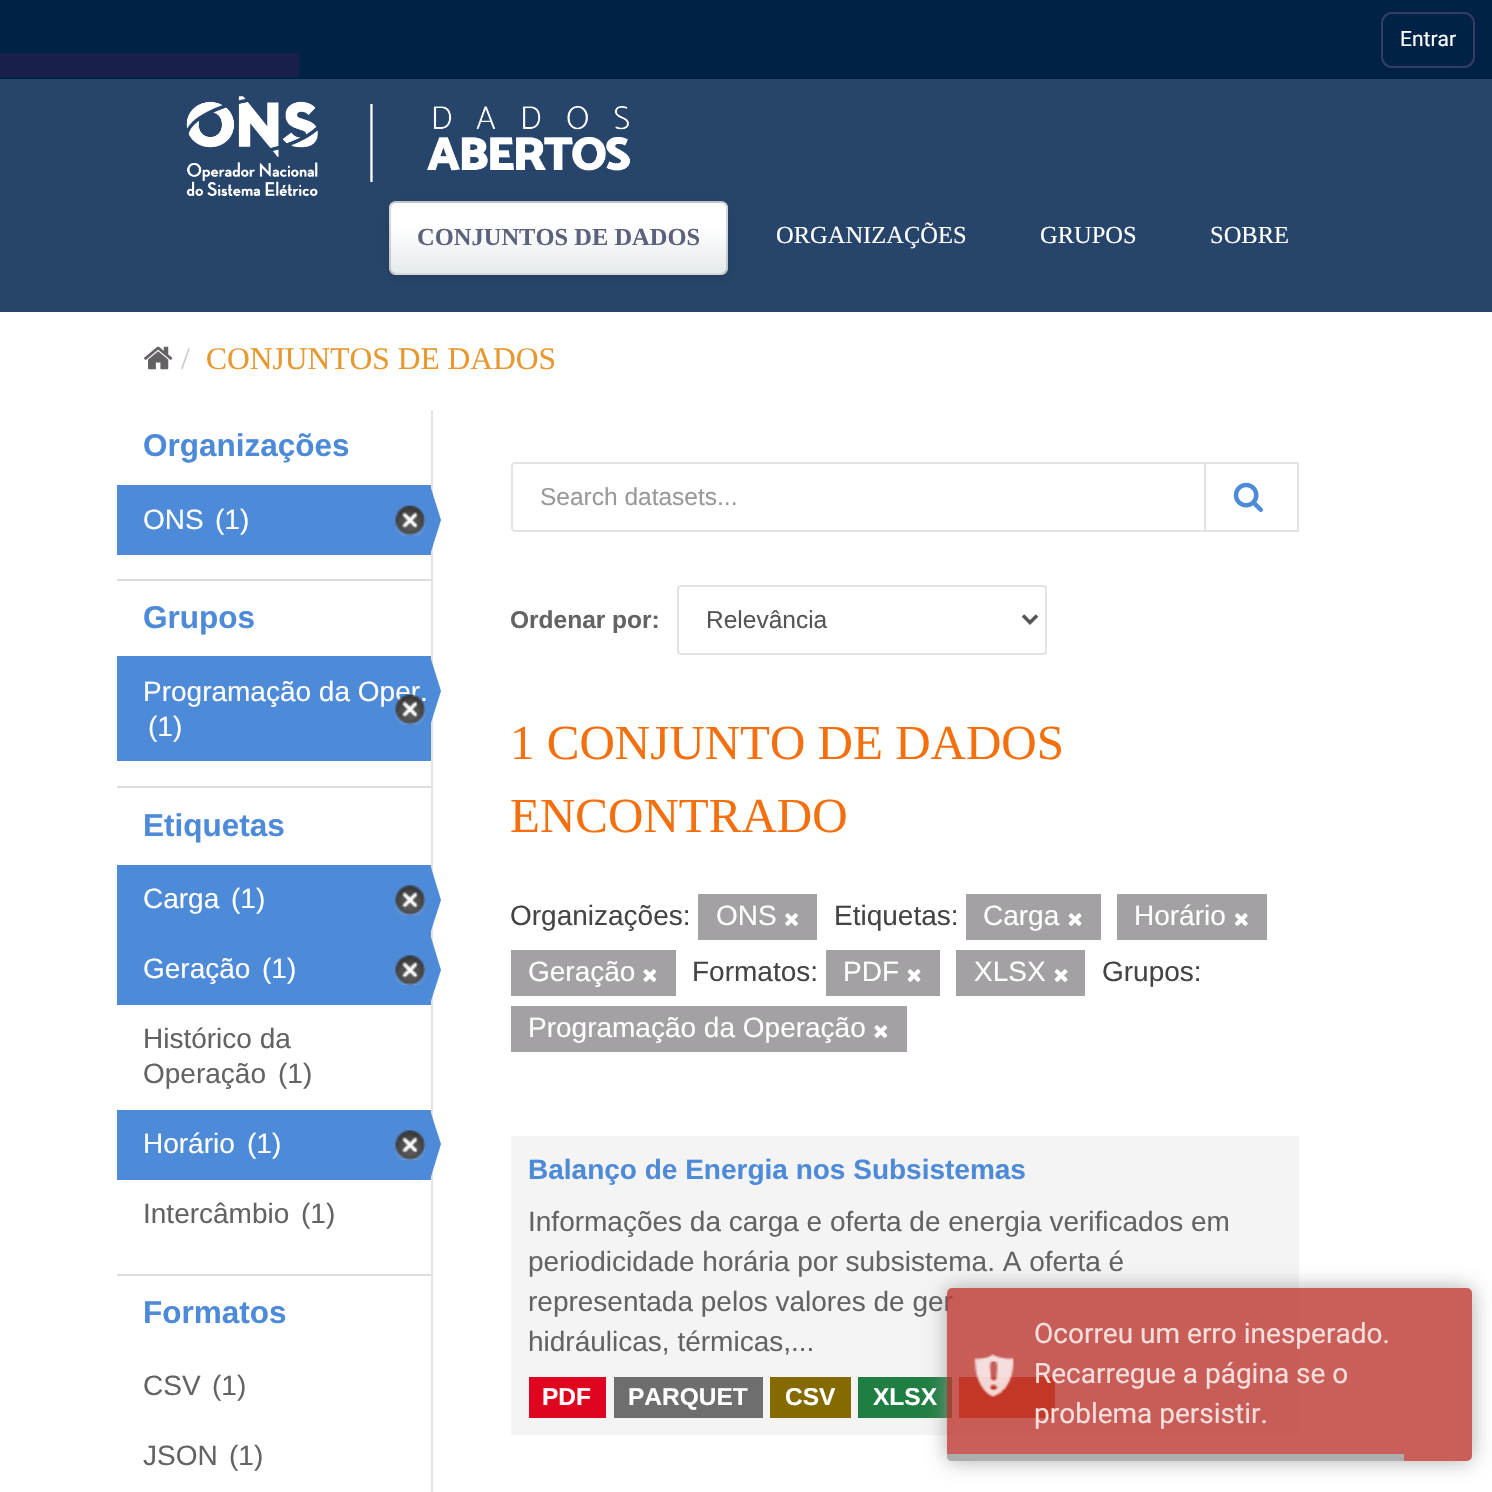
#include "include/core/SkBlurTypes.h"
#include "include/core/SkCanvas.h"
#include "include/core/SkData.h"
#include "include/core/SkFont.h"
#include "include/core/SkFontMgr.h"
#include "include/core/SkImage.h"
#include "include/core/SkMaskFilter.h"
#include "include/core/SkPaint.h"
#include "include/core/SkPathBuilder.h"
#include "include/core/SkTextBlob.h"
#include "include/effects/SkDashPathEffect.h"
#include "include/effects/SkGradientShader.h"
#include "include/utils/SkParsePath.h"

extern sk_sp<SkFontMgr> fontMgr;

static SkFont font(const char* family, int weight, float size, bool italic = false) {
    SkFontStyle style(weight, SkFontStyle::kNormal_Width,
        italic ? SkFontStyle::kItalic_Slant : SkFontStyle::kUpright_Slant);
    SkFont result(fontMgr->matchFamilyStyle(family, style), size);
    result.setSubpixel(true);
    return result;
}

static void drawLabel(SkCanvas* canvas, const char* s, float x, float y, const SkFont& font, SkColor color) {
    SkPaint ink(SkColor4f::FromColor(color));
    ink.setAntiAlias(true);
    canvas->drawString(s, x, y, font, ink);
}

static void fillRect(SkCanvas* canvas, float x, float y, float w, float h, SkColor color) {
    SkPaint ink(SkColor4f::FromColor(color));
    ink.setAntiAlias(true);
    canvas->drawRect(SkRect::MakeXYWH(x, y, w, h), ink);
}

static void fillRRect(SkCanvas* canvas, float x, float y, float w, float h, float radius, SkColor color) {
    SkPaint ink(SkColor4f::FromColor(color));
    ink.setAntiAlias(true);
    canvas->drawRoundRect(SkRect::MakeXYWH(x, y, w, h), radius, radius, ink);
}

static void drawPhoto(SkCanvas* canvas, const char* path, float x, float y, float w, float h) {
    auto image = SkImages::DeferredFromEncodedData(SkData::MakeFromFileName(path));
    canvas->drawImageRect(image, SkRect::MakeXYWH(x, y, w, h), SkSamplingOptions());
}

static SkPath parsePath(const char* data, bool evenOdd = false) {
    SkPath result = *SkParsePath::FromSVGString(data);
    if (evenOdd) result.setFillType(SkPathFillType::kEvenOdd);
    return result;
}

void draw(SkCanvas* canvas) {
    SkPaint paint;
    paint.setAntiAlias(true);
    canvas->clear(0xFFFFFFFF);
    fillRect(canvas, 0, 0, 1492, 79, 0xFF002247);
    paint.setStroke(true);
    paint.setStrokeWidth(2);
    paint.setColor(0xFF363C64);
    canvas->drawRoundRect(SkRect::MakeXYWH(1382, 13, 92, 54), 10, 10, paint);
    SkFont font1 = font("Roboto", 400, 21);
    drawLabel(canvas, "Entrar", 1400, 46, font1, 0xFFFFFFFF);
    fillRect(canvas, 0, 53, 299, 24, 0xFF181F4D);
    fillRect(canvas, 511, 1136, 788, 299, 0xFFF4F4F4);
    fillRect(canvas, 858, 1377, 94, 41, 0xFF207E42);
    fillRect(canvas, 959, 1377, 96, 41, 0xFFD63B00);
    canvas->save();
    canvas->clipPath(parsePath("M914 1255H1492V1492H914ZM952 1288H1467C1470 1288 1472 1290 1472 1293V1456C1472 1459 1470 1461 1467 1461H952C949 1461 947 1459 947 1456V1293C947 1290 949 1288 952 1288Z", true), true);
    paint.setStroke(false);
    paint.setColor(0xCC999999);
    paint.setMaskFilter(SkMaskFilter::MakeBlur(kNormal_SkBlurStyle, 10.5f));
    canvas->drawRoundRect(SkRect::MakeXYWH(947, 1288, 525, 173), 5, 5, paint);
    paint.setMaskFilter(nullptr);
    canvas->restore();
    SkFont font2 = font("Liberation Sans", 400, 28);
    drawLabel(canvas, "representada pelos valores de ger", 528, 1311, font2, 0xFF656266);
    fillRRect(canvas, 947, 1288, 525, 173, 5, 0xCCBD362F);
    drawPhoto(canvas, "assets/img1.png", 973, 1354, 41, 43);
    SkFont font3 = font("Roboto", 400, 28);
    drawLabel(canvas, "Ocorreu um erro inesperado.", 1034, 1343, font3, 0xFFF4DFDD);
    drawLabel(canvas, "Recarregue a página se o", 1034, 1383, font3, 0xFFF4DFDD);
    drawLabel(canvas, "problema persistir.", 1034, 1423, font3, 0xFFF4DFDD);
    paint.setColor(0xFFADADAD);
    canvas->drawPath(parsePath("M947 1454H1404V1461H952C949 1461 947 1459 947 1456Z"), paint);
    fillRect(canvas, 0, 79, 1492, 233, 0xFF27456B);
    drawPhoto(canvas, "assets/img2.png", 186, 96, 445, 101);
    paint.setColor(0x24000000);
    paint.setMaskFilter(SkMaskFilter::MakeBlur(kNormal_SkBlurStyle, 6));
    canvas->drawRoundRect(SkRect::MakeXYWH(389, 205, 339, 73), 7, 7, paint);
    paint.setMaskFilter(nullptr);
    canvas->save();
    canvas->clipPath(parsePath("M396 201H721C725 201 728 204 728 208V268C728 272 725 275 721 275H396C392 275 389 272 389 268V208C389 204 392 201 396 201Z"), true);
    {
        const SkColor colors[] = {0xFFFFFFFF, 0xFFE5EAEC};
        const float stops[] = {0.32f, 1};
        const SkPoint ends[] = {{558, 133}, {558, 203}};
        paint.setShader(SkGradientShader::MakeLinear(ends, colors, stops, 2, SkTileMode::kClamp));
        paint.setAlpha(255);
    }
    canvas->drawRect(SkRect::MakeXYWH(389, 201, 339, 2), paint);
    {
        const SkColor colors[] = {0xFFFFFFFF, 0xFFE5EAEC};
        const float stops[] = {0.32f, 1};
        const SkPoint ends[] = {{558, 203}, {558, 273}};
        paint.setShader(SkGradientShader::MakeLinear(ends, colors, stops, 2, SkTileMode::kClamp));
        paint.setAlpha(255);
    }
    canvas->drawRect(SkRect::MakeXYWH(389, 203, 339, 70), paint);
    {
        const SkColor colors[] = {0xFFFFFFFF, 0xFFE5EAEC};
        const float stops[] = {0.32f, 1};
        const SkPoint ends[] = {{558, 273}, {558, 343}};
        paint.setShader(SkGradientShader::MakeLinear(ends, colors, stops, 2, SkTileMode::kClamp));
        paint.setAlpha(255);
    }
    canvas->drawRect(SkRect::MakeXYWH(389, 273, 339, 2), paint);
    canvas->restore();
    paint.setStroke(true);
    paint.setShader(nullptr);
    paint.setColor(0x29000000);
    canvas->drawRoundRect(SkRect::MakeXYWH(390, 202, 337, 72), 6, 6, paint);
    SkFont font4 = font("Liberation Serif", 700, 24.5f);
    drawLabel(canvas, "CONJUNTOS DE DADOS", 417, 245, font4, 0xFF5D627C);
    SkFont font5 = font("Liberation Serif", 400, 24.5f);
    drawLabel(canvas, "ORGANIZAÇÕES", 776, 243, font5, 0xFFFFFFFF);
    drawLabel(canvas, "GRUPOS", 1040, 243, font5, 0xFFFFFFFF);
    drawLabel(canvas, "SOBRE", 1210, 243, font5, 0xFFFFFFFF);
    drawPhoto(canvas, "assets/img3.png", 144, 346, 29, 24);
    SkFont font6 = font("Liberation Serif", 400, 31.5f);
    drawLabel(canvas, "/", 181, 369, font6, 0xFFCCCCCC);
    drawLabel(canvas, "CONJUNTOS DE DADOS", 206, 369, font6, 0xFFE7982F);
    SkFont font7 = font("Liberation Sans", 700, 31.5f);
    drawLabel(canvas, "Organizações", 143, 456, font7, 0xFF4D8AD8);
    fillRect(canvas, 117, 485, 314, 70, 0xFF4D8AD8);
    drawLabel(canvas, "ONS", 143, 529, font2, 0xFFFFFFFF);
    drawLabel(canvas, "(1)", 215, 529, font2, 0xFFFFFFFF);
    drawPhoto(canvas, "assets/img4.png", 395, 505, 31, 31);
    fillRect(canvas, 431, 410, 2, 1082, 0xFFE4E3E4);
    paint.setStroke(false);
    paint.setColor(0xFF4D8AD8);
    canvas->drawPath(parsePath("M430 555V485L441 520Z"), paint);
    fillRect(canvas, 117, 579, 314, 2, 0xFFDDDDDD);
    drawLabel(canvas, "Grupos", 143, 628, font7, 0xFF4D8AD8);
    fillRect(canvas, 117, 656, 314, 105, 0xFF4D8AD8);
    drawLabel(canvas, "Programação da Oper.", 143, 701, font2, 0xFFFFFFFF);
    canvas->drawPath(parsePath("M430 726V656L441 691Z"), paint);
    drawPhoto(canvas, "assets/img5.png", 395, 694, 31, 31);
    drawLabel(canvas, "(1)", 148, 736, font2, 0xFFFFFFFF);
    fillRect(canvas, 117, 786, 314, 2, 0xFFDDDDDD);
    drawLabel(canvas, "Etiquetas", 143, 836, font7, 0xFF4D8AD8);
    fillRect(canvas, 117, 865, 314, 140, 0xFF4D8AD8);
    drawLabel(canvas, "Carga", 143, 908, font2, 0xFFFFFFFF);
    drawLabel(canvas, "(1)", 231, 908, font2, 0xFFFFFFFF);
    drawPhoto(canvas, "assets/img6.png", 395, 885, 31, 31);
    canvas->drawPath(parsePath("M430 934V864L441 900Z"), paint);
    drawLabel(canvas, "Geração", 143, 978, font2, 0xFFFFFFFF);
    drawLabel(canvas, "(1)", 262, 978, font2, 0xFFFFFFFF);
    drawPhoto(canvas, "assets/img6.png", 395, 955, 31, 31);
    canvas->drawPath(parsePath("M430 1004V934L441 970Z"), paint);
    drawLabel(canvas, "Histórico da", 143, 1048, font2, 0xFF656266);
    drawLabel(canvas, "Operação", 143, 1083, font2, 0xFF656266);
    drawLabel(canvas, "(1)", 278, 1083, font2, 0xFF656266);
    fillRect(canvas, 117, 1110, 314, 70, 0xFF4D8AD8);
    drawLabel(canvas, "Horário", 143, 1153, font2, 0xFFFFFFFF);
    drawLabel(canvas, "(1)", 247, 1153, font2, 0xFFFFFFFF);
    drawPhoto(canvas, "assets/img6.png", 395, 1130, 31, 31);
    canvas->drawPath(parsePath("M430 1180V1110L441 1144Z"), paint);
    drawLabel(canvas, "Intercâmbio", 143, 1223, font2, 0xFF656266);
    drawLabel(canvas, "(1)", 301, 1223, font2, 0xFF656266);
    fillRect(canvas, 117, 1274, 314, 2, 0xFFDDDDDD);
    drawLabel(canvas, "Formatos", 143, 1323, font7, 0xFF4D8AD8);
    drawLabel(canvas, "CSV", 143, 1395, font2, 0xFF656266);
    drawLabel(canvas, "(1)", 212, 1395, font2, 0xFF656266);
    drawLabel(canvas, "JSON", 143, 1465, font2, 0xFF656266);
    drawLabel(canvas, "(1)", 229, 1465, font2, 0xFF656266);
    paint.setStroke(true);
    paint.setColor(0xFFE4E3E4);
    canvas->drawPath(parsePath("M515 463H1205V531H515C513.5 531 512 529.5 512 528V466C512 464.5 513.5 463 515 463Z"), paint);
    SkFont font8 = font("Liberation Sans", 400, 24.5f);
    drawLabel(canvas, "Search datasets...", 540, 505, font8, 0xFF999999);
    canvas->drawRect(SkRect::MakeXYWH(1205, 463, 93, 68), paint);
    drawPhoto(canvas, "assets/img7.png", 1233, 482, 30, 30);
    SkFont font9 = font("Liberation Sans", 700, 24.5f);
    drawLabel(canvas, "Ordenar por:", 510, 628, font9, 0xFF656266);
    canvas->drawRoundRect(SkRect::MakeXYWH(678, 586, 368, 68), 3, 3, paint);
    paint.setStrokeWidth(3.5f);
    paint.setColor(0xFF555555);
    canvas->drawPath(parsePath("M1023 615.5L1030 622.5L1037 615.5"), paint);
    drawLabel(canvas, "Relevância", 706, 628, font8, 0xFF555555);
    SkFont font10 = font("Liberation Serif", 400, 49);
    drawLabel(canvas, "1 CONJUNTO DE DADOS", 510, 759, font10, 0xFFF4700E);
    drawLabel(canvas, "ENCONTRADO", 510, 832, font10, 0xFFF4700E);
    drawLabel(canvas, "Organizações:", 510, 925, font2, 0xFF444444);
    fillRect(canvas, 698, 894, 119, 46, 0xFFA3A1A3);
    drawLabel(canvas, "ONS", 716, 925, font2, 0xFFFFFFFF);
    drawPhoto(canvas, "assets/img8.png", 785, 913, 13, 13);
    drawLabel(canvas, "Etiquetas:", 834, 925, font2, 0xFF444444);
    fillRect(canvas, 966, 894, 135, 46, 0xFFA3A1A3);
    drawLabel(canvas, "Carga", 983, 925, font2, 0xFFFFFFFF);
    drawPhoto(canvas, "assets/img9.png", 1068, 913, 14, 13);
    fillRect(canvas, 1117, 894, 150, 46, 0xFFA3A1A3);
    drawLabel(canvas, "Horário", 1134, 925, font2, 0xFFFFFFFF);
    drawPhoto(canvas, "assets/img10.png", 1235, 913, 13, 13);
    fillRect(canvas, 511, 950, 165, 46, 0xFFA3A1A3);
    drawLabel(canvas, "Geração", 528, 981, font2, 0xFFFFFFFF);
    drawPhoto(canvas, "assets/img11.png", 643, 969, 14, 13);
    drawLabel(canvas, "Formatos:", 692, 981, font2, 0xFF444444);
    fillRect(canvas, 826, 950, 114, 46, 0xFFA3A1A3);
    drawLabel(canvas, "PDF", 843, 981, font2, 0xFFFFFFFF);
    drawPhoto(canvas, "assets/img12.png", 907, 969, 14, 13);
    fillRect(canvas, 956, 950, 129, 46, 0xFFA3A1A3);
    drawLabel(canvas, "XLSX", 974, 981, font2, 0xFFFFFFFF);
    drawPhoto(canvas, "assets/img9.png", 1054, 969, 14, 13);
    drawLabel(canvas, "Grupos:", 1102, 981, font2, 0xFF444444);
    fillRect(canvas, 511, 1006, 396, 46, 0xFFA3A1A3);
    drawLabel(canvas, "Programação da Operação", 528, 1037, font2, 0xFFFFFFFF);
    drawPhoto(canvas, "assets/img13.png", 874, 1025, 14, 13);
    SkFont font11 = font("Liberation Sans", 700, 28);
    drawLabel(canvas, "Balanço de Energia nos Subsistemas", 528, 1179, font11, 0xFF4D8AD8);
    drawLabel(canvas, "Informações da carga e oferta de energia verificados em", 528, 1231, font2, 0xFF656266);
    drawLabel(canvas, "periodicidade horária por subsistema. A oferta é", 528, 1271, font2, 0xFF656266);
    drawLabel(canvas, "hidráulicas, térmicas,...", 528, 1351, font2, 0xFF656266);
    fillRect(canvas, 529, 1377, 77, 41, 0xFFE0051E);
    drawLabel(canvas, "PDF", 542, 1405, font9, 0xFFFFFFFF);
    fillRect(canvas, 614, 1377, 149, 41, 0xFF6E6E6E);
    drawLabel(canvas, "PARQUET", 628, 1405, font9, 0xFFFFFFFF);
    fillRect(canvas, 770, 1377, 81, 41, 0xFF856A00);
    drawLabel(canvas, "CSV", 785, 1405, font9, 0xFFFFFFFF);
    drawLabel(canvas, "XLSX", 873, 1405, font9, 0xFFFFFFFF);
}
